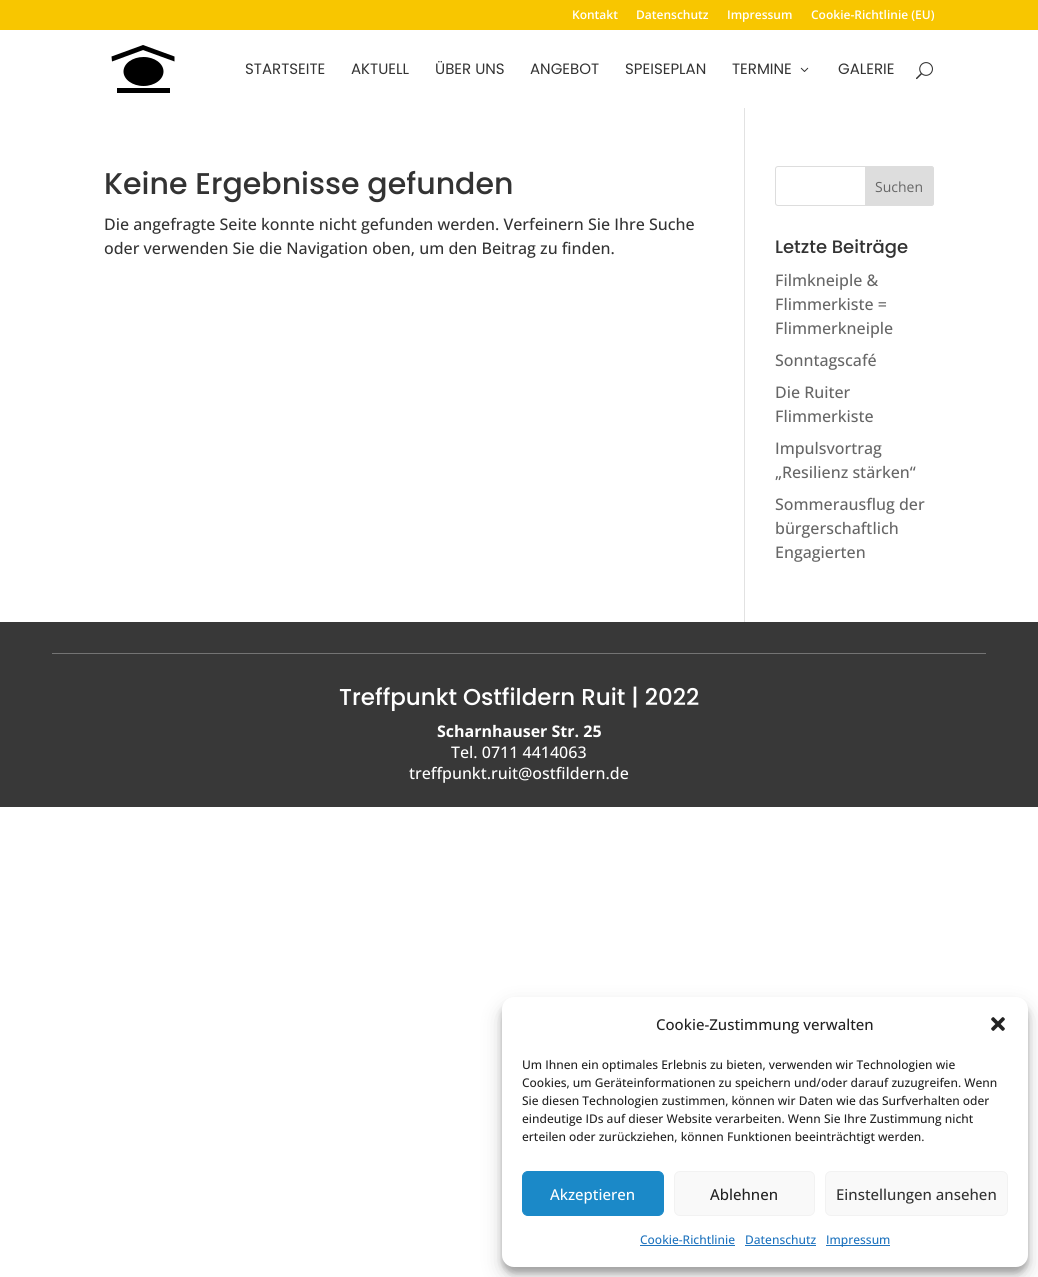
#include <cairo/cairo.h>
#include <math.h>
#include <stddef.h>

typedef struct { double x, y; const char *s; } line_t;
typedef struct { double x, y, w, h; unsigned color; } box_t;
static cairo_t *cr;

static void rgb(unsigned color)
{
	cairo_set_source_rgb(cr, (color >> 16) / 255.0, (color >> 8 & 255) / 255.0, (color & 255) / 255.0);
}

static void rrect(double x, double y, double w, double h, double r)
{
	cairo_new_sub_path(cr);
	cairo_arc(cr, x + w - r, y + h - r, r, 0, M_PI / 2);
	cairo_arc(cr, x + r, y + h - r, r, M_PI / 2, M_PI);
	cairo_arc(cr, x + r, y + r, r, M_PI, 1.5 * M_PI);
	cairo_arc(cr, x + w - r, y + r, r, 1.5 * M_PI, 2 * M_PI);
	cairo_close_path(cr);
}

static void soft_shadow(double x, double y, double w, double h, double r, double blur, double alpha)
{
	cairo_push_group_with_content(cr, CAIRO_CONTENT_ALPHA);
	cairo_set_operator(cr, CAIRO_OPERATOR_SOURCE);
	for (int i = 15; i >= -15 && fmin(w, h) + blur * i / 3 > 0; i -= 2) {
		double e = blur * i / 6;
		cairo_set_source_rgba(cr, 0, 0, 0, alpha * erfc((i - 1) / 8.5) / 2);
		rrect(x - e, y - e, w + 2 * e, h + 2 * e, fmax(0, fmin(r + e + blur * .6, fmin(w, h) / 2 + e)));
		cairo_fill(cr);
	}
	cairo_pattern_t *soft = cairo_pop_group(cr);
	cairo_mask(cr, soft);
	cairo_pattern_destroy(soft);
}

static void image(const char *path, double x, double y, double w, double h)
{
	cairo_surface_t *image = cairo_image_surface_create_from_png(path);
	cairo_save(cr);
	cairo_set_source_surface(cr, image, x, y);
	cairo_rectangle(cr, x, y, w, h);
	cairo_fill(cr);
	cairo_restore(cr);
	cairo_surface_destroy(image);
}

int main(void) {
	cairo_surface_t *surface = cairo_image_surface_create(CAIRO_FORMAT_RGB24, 1038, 1277);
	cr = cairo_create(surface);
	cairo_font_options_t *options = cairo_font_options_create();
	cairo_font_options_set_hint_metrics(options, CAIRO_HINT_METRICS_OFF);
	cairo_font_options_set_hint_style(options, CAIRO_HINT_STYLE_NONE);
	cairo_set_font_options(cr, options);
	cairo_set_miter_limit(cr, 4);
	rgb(0xffffff);
	cairo_paint(cr);
	rgb(0xf8c600);
	cairo_rectangle(cr, 0, 0, 1038, 30);
	cairo_fill(cr);
	rgb(0x000000);
	cairo_new_path(cr);
	cairo_move_to(cr, 143.5, 57);
	cairo_curve_to(cr, 154.5, 57, 163.5, 63.5, 163.5, 71.5);
	cairo_curve_to(cr, 163.5, 79.5, 154.5, 86, 143.5, 86);
	cairo_curve_to(cr, 132.5, 86, 123.5, 79.5, 123.5, 71.5);
	cairo_curve_to(cr, 123.5, 63.5, 132.5, 57, 143.5, 57);
	cairo_close_path(cr);
	cairo_fill(cr);
	cairo_new_path(cr);
	cairo_move_to(cr, 143, 45);
	cairo_line_to(cr, 111.5, 56.5);
	cairo_line_to(cr, 112, 61.5);
	cairo_line_to(cr, 144.5, 49.5);
	cairo_close_path(cr);
	cairo_fill(cr);
	cairo_new_path(cr);
	cairo_move_to(cr, 174.5, 56.5);
	cairo_line_to(cr, 143, 45);
	cairo_line_to(cr, 141.5, 49.5);
	cairo_line_to(cr, 174.5, 61.5);
	cairo_close_path(cr);
	cairo_fill(cr);
	cairo_rectangle(cr, 117, 88, 53, 5);
	cairo_fill(cr);
	image("img/1.png", 800, 67, 9, 5);
	image("img/2.png", 916, 62, 17, 18);
	rgb(0xe2e2e2);
	cairo_rectangle(cr, 744, 108, 1, 514);
	cairo_fill(cr);
	rrect(775.5, 166.5, 158, 39, 2.5);
	rgb(0xdddddd);
	cairo_set_line_width(cr, 1);
	cairo_stroke(cr);
	cairo_new_path(cr);
	cairo_move_to(cr, 865.5, 166.5);
	cairo_line_to(cr, 931, 166.5);
	cairo_curve_to(cr, 932.5, 166.5, 933.5, 167.5, 933.5, 169);
	cairo_line_to(cr, 933.5, 203);
	cairo_curve_to(cr, 933.5, 204.5, 932.5, 205.5, 931, 205.5);
	cairo_line_to(cr, 865.5, 205.5);
	cairo_close_path(cr);
	cairo_fill_preserve(cr);
	cairo_stroke(cr);
	rgb(0x383838);
	cairo_rectangle(cr, 0, 622, 1038, 185);
	cairo_fill(cr);
	rgb(0x747474);
	cairo_rectangle(cr, 52, 653, 934, 1);
	cairo_fill(cr);
	rgb(0x000000);
	soft_shadow(502, 1003, 526, 270, 12, 3, 0.23);
	soft_shadow(502, 1007, 526, 270, 12, 10, 0.19);
	rgb(0xffffff);
	rrect(502, 997, 526, 270, 12);
	cairo_fill(cr);
	image("img/3.png", 991, 1017, 14, 14);
	rgb(0x1b89c8);
	rrect(522.5, 1171.5, 141, 44, 5.5);
	cairo_fill_preserve(cr);
	cairo_stroke(cr);
	rgb(0xf9f9f9);
	rrect(674.5, 1171.5, 140, 44, 5.5);
	cairo_fill_preserve(cr);
	rgb(0xf2f2f2);
	cairo_stroke(cr);
	rgb(0xf9f9f9);
	rrect(825.5, 1171.5, 182, 44, 5.5);
	cairo_fill_preserve(cr);
	rgb(0xf2f2f2);
	cairo_stroke(cr);
	{
		static const box_t items[] = {
			{640, 1245, 95, 1, 0x1e73be},
			{745, 1245, 71, 1, 0x1e73be},
			{826, 1245, 64, 1, 0x1e73be},
		};
		for (size_t i = 0; i < sizeof items / sizeof *items; i++) {
			rgb(items[i].color);
			cairo_rectangle(cr, items[i].x, items[i].y, items[i].w, items[i].h);
			cairo_fill(cr);
		}
	}
	cairo_select_font_face(cr, "Open Sans SemiBold", CAIRO_FONT_SLANT_NORMAL, CAIRO_FONT_WEIGHT_NORMAL);
	cairo_set_font_size(cr, 12);
	rgb(0xffffff);
	{
		static const line_t items[] = {
			{572, 19, "Kontakt"},
			{636, 19, "Datenschutz"},
			{727, 19, "Impressum"},
			{811, 19, "Cookie-Richtlinie (EU)"},
		};
		for (size_t i = 0; i < sizeof items / sizeof *items; i++) {
			cairo_move_to(cr, items[i].x, items[i].y);
			cairo_show_text(cr, items[i].s);
		}
	}
	cairo_select_font_face(cr, "Poppins", CAIRO_FONT_SLANT_NORMAL, CAIRO_FONT_WEIGHT_NORMAL);
	cairo_set_font_size(cr, 15);
	rgb(0x333333);
	{
		static const line_t items[] = {
			{245, 74, "STARTSEITE"},
			{351, 74, "AKTUELL"},
			{435, 74, "ÜBER UNS"},
			{530, 74, "ANGEBOT"},
			{625, 74, "SPEISEPLAN"},
			{732, 74, "TERMINE"},
			{838, 74, "GALERIE"},
		};
		for (size_t i = 0; i < sizeof items / sizeof *items; i++) {
			cairo_move_to(cr, items[i].x, items[i].y);
			cairo_show_text(cr, items[i].s);
		}
	}
	cairo_select_font_face(cr, "Poppins Medium", CAIRO_FONT_SLANT_NORMAL, CAIRO_FONT_WEIGHT_NORMAL);
	cairo_set_font_size(cr, 30);
	cairo_move_to(cr, 104, 194);
	cairo_show_text(cr, "Keine Ergebnisse gefunden");
	cairo_select_font_face(cr, "Open Sans Medium", CAIRO_FONT_SLANT_NORMAL, CAIRO_FONT_WEIGHT_NORMAL);
	cairo_set_font_size(cr, 16);
	cairo_move_to(cr, 104, 230);
	cairo_show_text(cr, "Die angefragte Seite konnte nicht gefunden werden. Verfeinern Sie Ihre Suche");
	cairo_move_to(cr, 104, 254);
	cairo_show_text(cr, "oder verwenden Sie die Navigation oben, um den Beitrag zu finden.");
	cairo_select_font_face(cr, "Open Sans", CAIRO_FONT_SLANT_NORMAL, CAIRO_FONT_WEIGHT_NORMAL);
	cairo_set_font_size(cr, 14);
	rgb(0x666666);
	cairo_move_to(cr, 875, 192);
	cairo_show_text(cr, "Suchen");
	cairo_select_font_face(cr, "Poppins Medium", CAIRO_FONT_SLANT_NORMAL, CAIRO_FONT_WEIGHT_NORMAL);
	cairo_set_font_size(cr, 18);
	rgb(0x333333);
	cairo_move_to(cr, 775, 253);
	cairo_show_text(cr, "Letzte Beiträge");
	cairo_select_font_face(cr, "Open Sans Medium", CAIRO_FONT_SLANT_NORMAL, CAIRO_FONT_WEIGHT_NORMAL);
	cairo_set_font_size(cr, 16);
	rgb(0x666666);
	{
		static const line_t items[] = {
			{775, 286, "Filmkneiple &"},
			{775, 310, "Flimmerkiste ="},
			{775, 334, "Flimmerkneiple"},
			{775, 366, "Sonntagscafé"},
			{775, 398, "Die Ruiter"},
			{775, 422, "Flimmerkiste"},
			{775, 454, "Impulsvortrag"},
			{775, 478, "„Resilienz stärken“"},
			{775, 510, "Sommerausflug der"},
			{775, 534, "bürgerschaftlich"},
			{775, 558, "Engagierten"},
		};
		for (size_t i = 0; i < sizeof items / sizeof *items; i++) {
			cairo_move_to(cr, items[i].x, items[i].y);
			cairo_show_text(cr, items[i].s);
		}
	}
	cairo_select_font_face(cr, "Poppins Medium", CAIRO_FONT_SLANT_NORMAL, CAIRO_FONT_WEIGHT_NORMAL);
	cairo_set_font_size(cr, 23);
	rgb(0xffffff);
	cairo_move_to(cr, 339, 705);
	cairo_show_text(cr, "Treffpunkt Ostfildern Ruit | 2022");
	cairo_select_font_face(cr, "Open Sans", CAIRO_FONT_SLANT_NORMAL, CAIRO_FONT_WEIGHT_BOLD);
	cairo_set_font_size(cr, 16);
	cairo_move_to(cr, 437, 737);
	cairo_show_text(cr, "Scharnhauser Str. 25");
	cairo_select_font_face(cr, "Open Sans Medium", CAIRO_FONT_SLANT_NORMAL, CAIRO_FONT_WEIGHT_NORMAL);
	cairo_move_to(cr, 451, 758);
	cairo_show_text(cr, "Tel. 0711 4414063");
	cairo_move_to(cr, 409, 779);
	cairo_show_text(cr, "treffpunkt.ruit@ostfildern.de");
	cairo_set_font_size(cr, 15);
	rgb(0x222222);
	cairo_move_to(cr, 656, 1030);
	cairo_show_text(cr, "Cookie-Zustimmung verwalten");
	cairo_set_font_size(cr, 12);
	{
		static const line_t items[] = {
			{522, 1069, "Um Ihnen ein optimales Erlebnis zu bieten, verwenden wir Technologien wie"},
			{522, 1087, "Cookies, um Geräteinformationen zu speichern und/oder darauf zuzugreifen. Wenn"},
			{522, 1105, "Sie diesen Technologien zustimmen, können wir Daten wie das Surfverhalten oder"},
			{522, 1123, "eindeutige IDs auf dieser Website verarbeiten. Wenn Sie Ihre Zustimmung nicht"},
			{522, 1141, "erteilen oder zurückziehen, können Funktionen beeinträchtigt werden."},
		};
		for (size_t i = 0; i < sizeof items / sizeof *items; i++) {
			cairo_move_to(cr, items[i].x, items[i].y);
			cairo_show_text(cr, items[i].s);
		}
	}
	cairo_set_font_size(cr, 15);
	rgb(0xffffff);
	cairo_move_to(cr, 550, 1200);
	cairo_show_text(cr, "Akzeptieren");
	rgb(0x222222);
	cairo_move_to(cr, 710, 1200);
	cairo_show_text(cr, "Ablehnen");
	rgb(0x333333);
	cairo_move_to(cr, 836, 1200);
	cairo_show_text(cr, "Einstellungen ansehen");
	cairo_set_font_size(cr, 12);
	rgb(0x1e73be);
	{
		static const line_t items[] = {
			{640, 1244, "Cookie-Richtlinie"},
			{745, 1244, "Datenschutz"},
			{826, 1244, "Impressum"},
		};
		for (size_t i = 0; i < sizeof items / sizeof *items; i++) {
			cairo_move_to(cr, items[i].x, items[i].y);
			cairo_show_text(cr, items[i].s);
		}
	}
	cairo_surface_write_to_png(surface, "page.png");
	cairo_font_options_destroy(options);
	cairo_destroy(cr);
	cairo_surface_destroy(surface);
	return 0;
}
